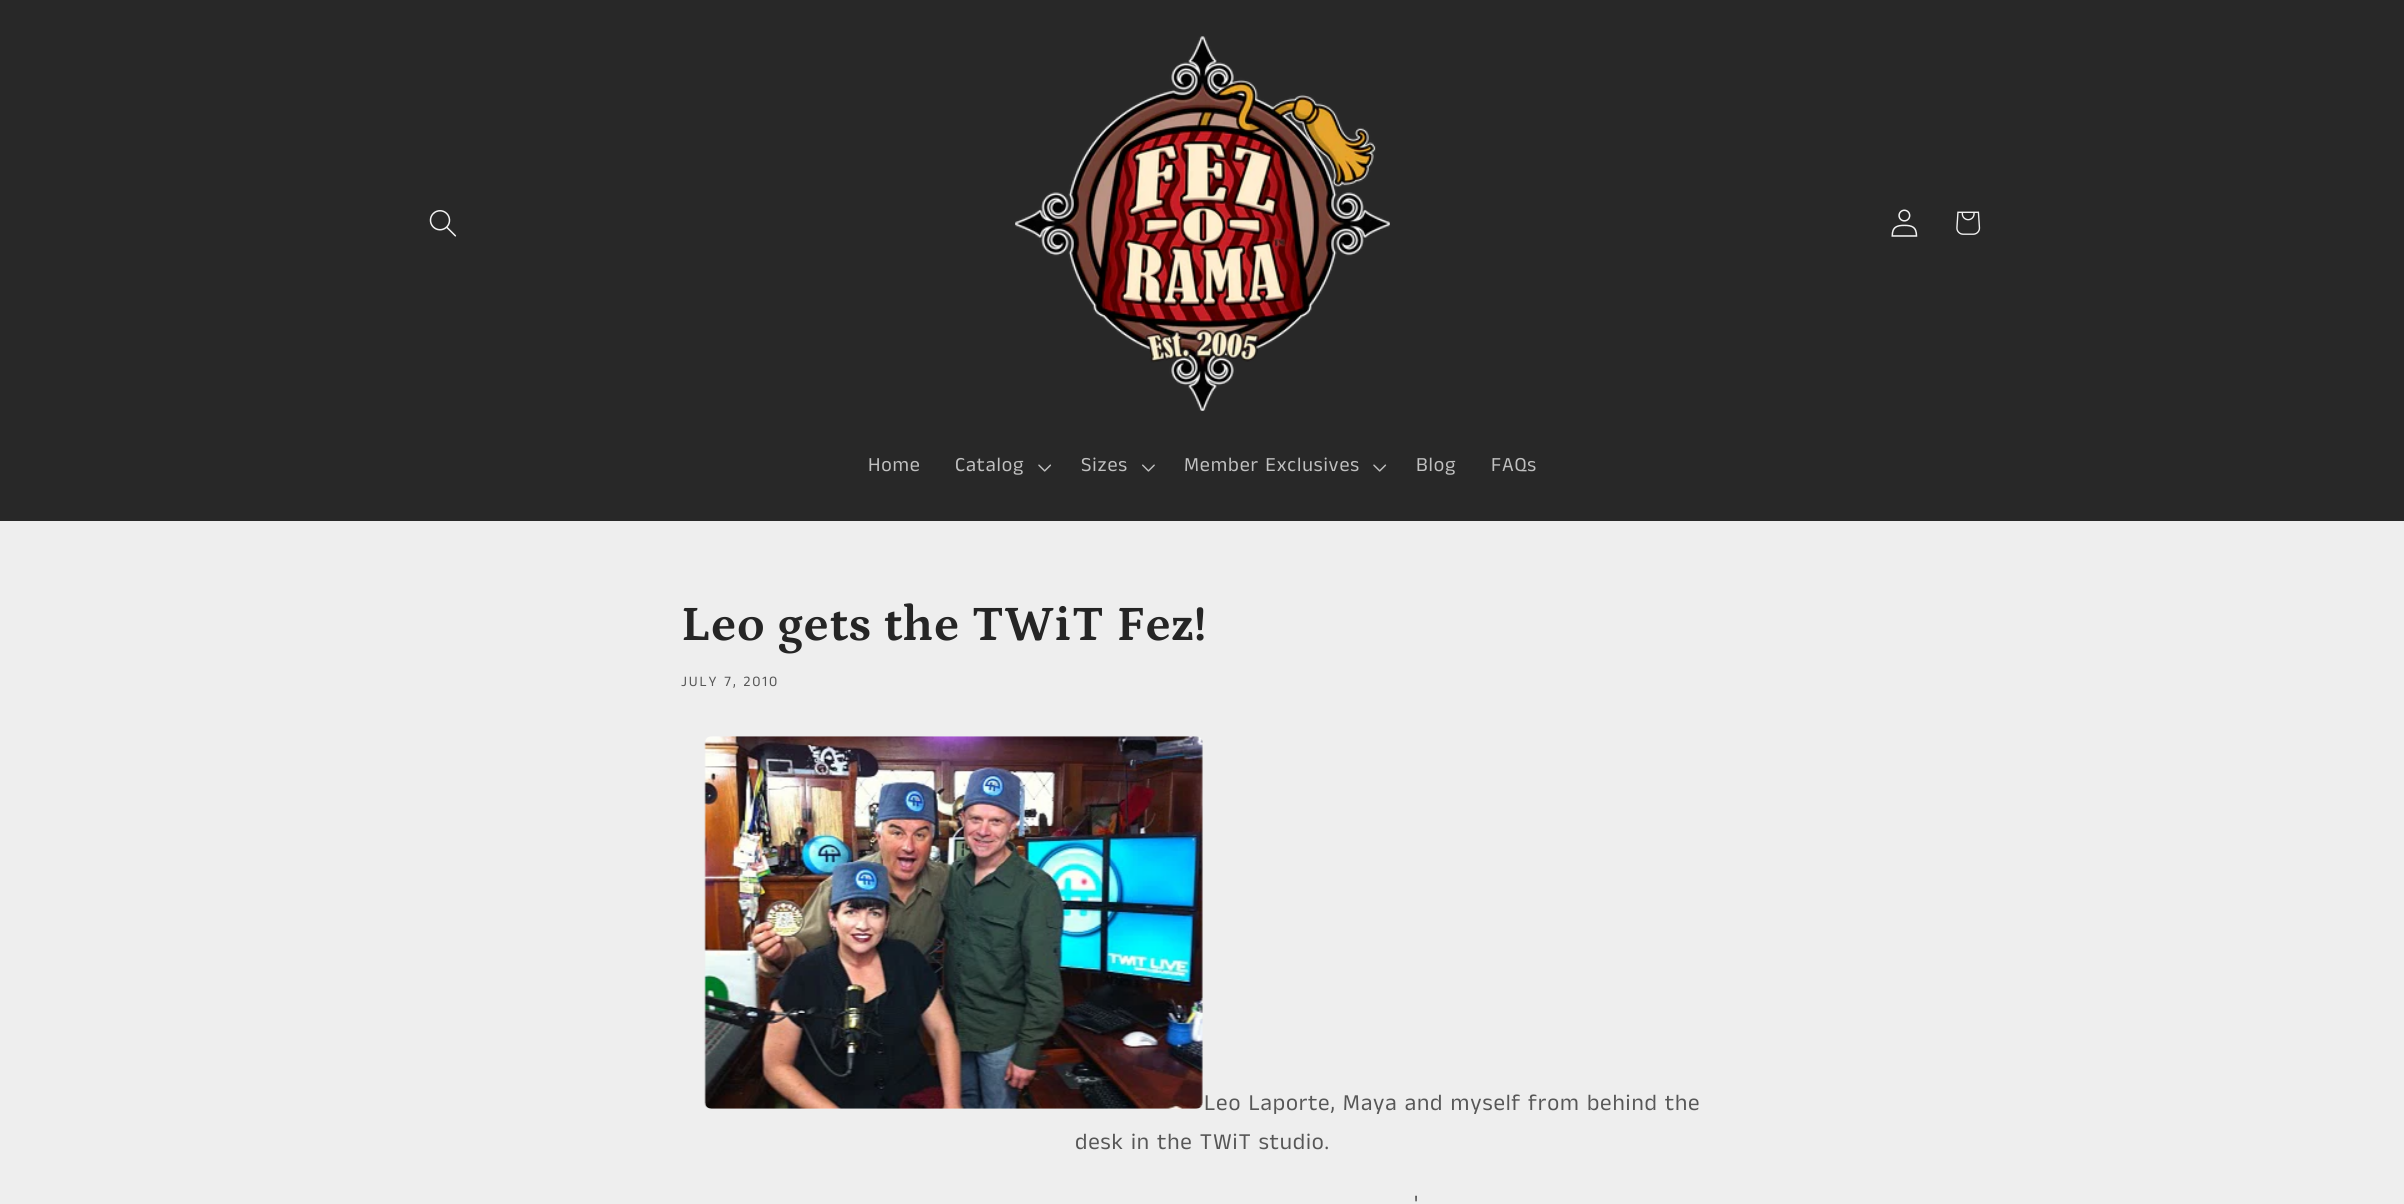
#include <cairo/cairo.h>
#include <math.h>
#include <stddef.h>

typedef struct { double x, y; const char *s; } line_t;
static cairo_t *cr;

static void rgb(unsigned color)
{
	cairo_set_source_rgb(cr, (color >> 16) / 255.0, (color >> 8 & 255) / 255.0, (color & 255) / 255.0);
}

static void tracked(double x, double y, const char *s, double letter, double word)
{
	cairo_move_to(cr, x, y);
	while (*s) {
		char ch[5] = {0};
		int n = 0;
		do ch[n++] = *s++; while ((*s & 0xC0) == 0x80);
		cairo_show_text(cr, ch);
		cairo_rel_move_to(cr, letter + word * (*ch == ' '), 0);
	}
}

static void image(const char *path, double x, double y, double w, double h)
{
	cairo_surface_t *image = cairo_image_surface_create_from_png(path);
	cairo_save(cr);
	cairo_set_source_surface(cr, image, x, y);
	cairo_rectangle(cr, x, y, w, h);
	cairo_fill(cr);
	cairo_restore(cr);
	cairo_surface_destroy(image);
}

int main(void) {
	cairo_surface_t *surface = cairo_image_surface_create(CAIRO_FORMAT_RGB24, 2404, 1204);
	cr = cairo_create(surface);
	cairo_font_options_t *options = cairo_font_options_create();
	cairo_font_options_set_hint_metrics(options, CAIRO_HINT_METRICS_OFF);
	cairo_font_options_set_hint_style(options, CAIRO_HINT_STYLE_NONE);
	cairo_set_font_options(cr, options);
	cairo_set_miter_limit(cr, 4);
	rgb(0xeeeeee);
	cairo_paint(cr);
	rgb(0x282828);
	cairo_rectangle(cr, 0, 0, 2404, 521);
	cairo_fill(cr);
	image("img/1.png", 429, 210, 28, 27);
	image("img/2.png", 1015, 36, 375, 375);
	image("img/3.png", 1891, 209, 27, 28);
	image("img/4.png", 1956, 211, 25, 24);
	image("img/5.png", 1038, 464, 13, 8);
	image("img/6.png", 1142, 464, 13, 8);
	image("img/7.png", 1373, 464, 14, 8);
	image("img/8.png", 704, 736, 499, 373);
	cairo_select_font_face(cr, "Anek Tamil", CAIRO_FONT_SLANT_NORMAL, CAIRO_FONT_WEIGHT_NORMAL);
	cairo_set_font_size(cr, 20.1);
	rgb(0xc0c0c0);
	{
		static const line_t items[] = {
			{868, 471, "Home"},
			{955, 471, "Catalog"},
			{1081, 471, "Sizes"},
			{1184, 471, "Member Exclusives"},
			{1416, 471, "Blog"},
			{1491, 471, "FAQs"},
		};
		for (size_t i = 0; i < sizeof items / sizeof *items; i++) {
			tracked(items[i].x, items[i].y, items[i].s, 0.85, 0);
		}
	}
	cairo_select_font_face(cr, "Petrona", CAIRO_FONT_SLANT_NORMAL, CAIRO_FONT_WEIGHT_BOLD);
	cairo_set_font_size(cr, 50);
	rgb(0x252525);
	tracked(681, 640, "Leo gets the TWiT Fez!", 0.75, 0);
	cairo_select_font_face(cr, "Anek Tamil", CAIRO_FONT_SLANT_NORMAL, CAIRO_FONT_WEIGHT_NORMAL);
	cairo_set_font_size(cr, 14.5);
	rgb(0x575757);
	tracked(681, 686, "JULY 7, 2010", 1.9, 0);
	cairo_set_font_size(cr, 23);
	{
		static const line_t items[] = {
			{1204, 1110, "Leo Laporte, Maya and myself from behind the"},
			{1075, 1149, "desk in the TWiT studio."},
			{1414, 1211, "'"},
		};
		for (size_t i = 0; i < sizeof items / sizeof *items; i++) {
			tracked(items[i].x, items[i].y, items[i].s, 0.85, 0);
		}
	}
	cairo_surface_write_to_png(surface, "page.png");
	cairo_font_options_destroy(options);
	cairo_destroy(cr);
	cairo_surface_destroy(surface);
	return 0;
}
